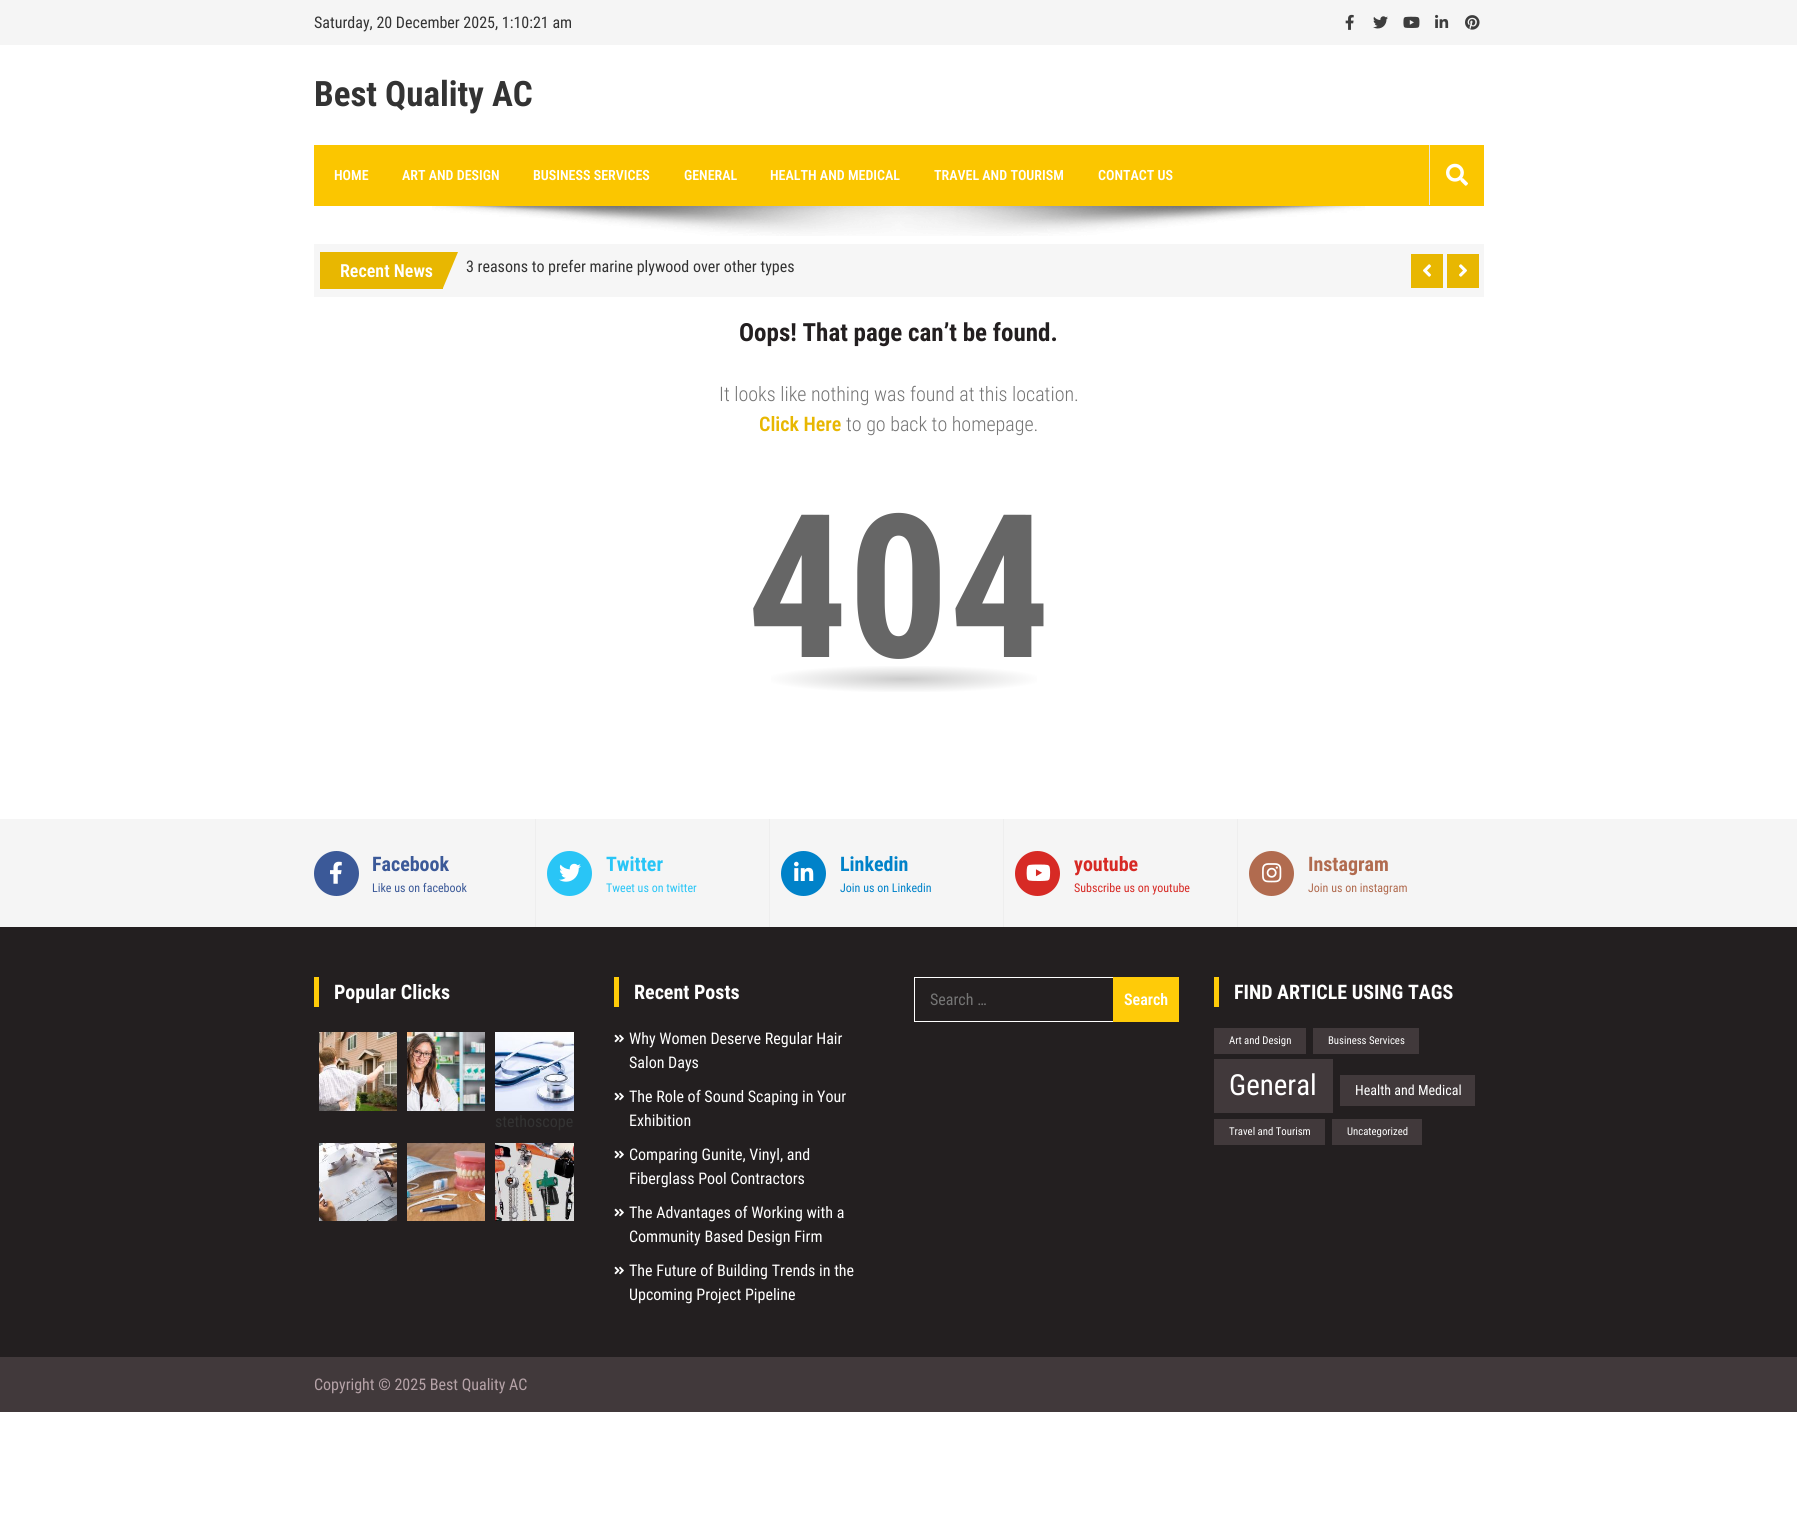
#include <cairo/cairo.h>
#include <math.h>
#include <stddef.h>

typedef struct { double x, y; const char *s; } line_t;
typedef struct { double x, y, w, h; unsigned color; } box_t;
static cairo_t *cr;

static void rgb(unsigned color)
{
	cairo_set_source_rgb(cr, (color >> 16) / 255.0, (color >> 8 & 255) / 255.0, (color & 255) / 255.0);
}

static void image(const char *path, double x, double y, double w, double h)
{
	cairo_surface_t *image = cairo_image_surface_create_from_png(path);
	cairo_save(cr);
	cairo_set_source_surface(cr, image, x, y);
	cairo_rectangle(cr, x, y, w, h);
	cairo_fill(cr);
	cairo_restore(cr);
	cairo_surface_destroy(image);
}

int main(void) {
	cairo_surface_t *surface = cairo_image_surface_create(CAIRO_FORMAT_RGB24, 1797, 1520);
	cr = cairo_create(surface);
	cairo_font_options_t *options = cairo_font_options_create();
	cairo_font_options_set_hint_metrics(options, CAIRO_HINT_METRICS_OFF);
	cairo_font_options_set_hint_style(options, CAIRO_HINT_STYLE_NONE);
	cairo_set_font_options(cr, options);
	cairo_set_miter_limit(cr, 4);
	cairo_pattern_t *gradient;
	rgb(0xffffff);
	cairo_paint(cr);
	rgb(0xf5f5f5);
	cairo_rectangle(cr, 0, 0, 1797, 45);
	cairo_fill(cr);
	image("img/1.png", 1345, 14, 9, 16);
	image("img/2.png", 1373, 16, 15, 13);
	image("img/3.png", 1403, 16, 17, 12);
	image("img/4.png", 1435, 14, 14, 14);
	image("img/5.png", 1465, 15, 15, 15);
	rgb(0xfbc600);
	cairo_rectangle(cr, 314, 145, 1170, 61);
	cairo_fill(cr);
	rgb(0xe5e5e5);
	cairo_rectangle(cr, 1429, 145, 1, 60);
	cairo_fill(cr);
	image("img/6.png", 1446, 163, 22, 23);
	image("img/7.png", 432, 206, 933, 30);
	rgb(0xf6f6f6);
	cairo_rectangle(cr, 314, 244, 1170, 53);
	cairo_fill(cr);
	rgb(0xe8b701);
	cairo_rectangle(cr, 320, 252, 123, 37);
	cairo_fill(cr);
	cairo_new_path(cr);
	cairo_move_to(cr, 443, 252);
	cairo_line_to(cr, 458, 252);
	cairo_line_to(cr, 443, 288);
	cairo_close_path(cr);
	cairo_fill(cr);
	cairo_rectangle(cr, 1411, 254, 32, 34);
	cairo_fill(cr);
	image("img/8.png", 1423, 264, 8, 13);
	cairo_rectangle(cr, 1447, 254, 32, 34);
	cairo_fill(cr);
	image("img/9.png", 1459, 264, 8, 13);
	gradient = cairo_pattern_create_radial(0, 0, 0, 0, 0, 1);
	cairo_pattern_set_matrix(gradient, &(cairo_matrix_t){1.0 / 279, 0, 0, 1.0 / 28, -1.0 * 904 / 279, -1.0 * 679 / 28});
	cairo_pattern_add_color_stop_rgba(gradient, 0, 0.8, 0.8, 0.8, 1);
	cairo_pattern_add_color_stop_rgba(gradient, 0.5, 1, 1, 1, 1);
	cairo_set_source(cr, gradient);
	cairo_pattern_destroy(gradient);
	cairo_rectangle(cr, 771, 666, 266, 26);
	cairo_fill(cr);
	rgb(0xf5f5f5);
	cairo_rectangle(cr, 0, 819, 1797, 108);
	cairo_fill(cr);
	rgb(0xeeeeee);
	cairo_rectangle(cr, 535, 819, 1, 108);
	cairo_fill(cr);
	rgb(0x3b5998);
	cairo_arc(cr, 336.5, 873.5, 22.5, 0, 2 * M_PI);
	cairo_fill(cr);
	image("img/10.png", 330, 861, 12, 23);
	rgb(0xeeeeee);
	cairo_rectangle(cr, 769, 819, 1, 108);
	cairo_fill(cr);
	rgb(0x29c5f6);
	cairo_arc(cr, 569.5, 873.5, 22.5, 0, 2 * M_PI);
	cairo_fill(cr);
	image("img/11.png", 559, 863, 22, 19);
	rgb(0xeeeeee);
	cairo_rectangle(cr, 1003, 819, 1, 108);
	cairo_fill(cr);
	rgb(0x0082c9);
	cairo_arc(cr, 803.5, 873.5, 22.5, 0, 2 * M_PI);
	cairo_fill(cr);
	image("img/12.png", 794, 861, 20, 20);
	rgb(0xeeeeee);
	cairo_rectangle(cr, 1237, 819, 1, 108);
	cairo_fill(cr);
	rgb(0xd72a25);
	cairo_arc(cr, 1037.5, 873.5, 22.5, 0, 2 * M_PI);
	cairo_fill(cr);
	image("img/13.png", 1026, 864, 25, 17);
	rgb(0xb16b4f);
	cairo_arc(cr, 1271.5, 873.5, 22.5, 0, 2 * M_PI);
	cairo_fill(cr);
	image("img/14.png", 1262, 863, 20, 20);
	rgb(0x231f20);
	cairo_rectangle(cr, 0, 927, 1797, 430);
	cairo_fill(cr);
	rgb(0xffcb08);
	cairo_rectangle(cr, 314, 977, 5, 30);
	cairo_fill(cr);
	image("img/15.png", 319, 1032, 78, 79);
	image("img/16.png", 407, 1032, 78, 79);
	image("img/17.png", 495, 1032, 79, 79);
	image("img/18.png", 319, 1143, 78, 78);
	image("img/19.png", 407, 1143, 78, 78);
	image("img/20.png", 495, 1143, 79, 78);
	cairo_rectangle(cr, 614, 977, 5, 30);
	cairo_fill(cr);
	image("img/21.png", 614, 1034, 10, 9);
	image("img/21.png", 614, 1092, 10, 9);
	image("img/21.png", 614, 1150, 10, 9);
	image("img/21.png", 614, 1208, 10, 9);
	image("img/21.png", 614, 1266, 10, 9);
	{
		static const box_t items[] = {
			{914, 977, 199, 1, 0xffffff},
			{914, 1021, 199, 1, 0xffffff},
			{914, 977, 1, 45, 0xffffff},
			{1113, 977, 66, 45, 0xffcb08},
			{1214, 977, 5, 30, 0xffcb08},
			{1214, 1028, 92, 26, 0x41393b},
			{1313, 1028, 106, 26, 0x41393b},
			{1214, 1059, 119, 54, 0x41393b},
			{1340, 1075, 135, 31, 0x41393b},
			{1214, 1119, 111, 26, 0x41393b},
			{1332, 1119, 90, 26, 0x41393b},
			{0, 1357, 1797, 55, 0x41393b},
		};
		for (size_t i = 0; i < sizeof items / sizeof *items; i++) {
			rgb(items[i].color);
			cairo_rectangle(cr, items[i].x, items[i].y, items[i].w, items[i].h);
			cairo_fill(cr);
		}
	}
	cairo_select_font_face(cr, "Roboto Condensed", CAIRO_FONT_SLANT_NORMAL, CAIRO_FONT_WEIGHT_NORMAL);
	cairo_set_font_size(cr, 16);
	rgb(0x333333);
	cairo_move_to(cr, 314, 28);
	cairo_show_text(cr, "Saturday, 20 December 2025, 1:10:21 am");
	cairo_select_font_face(cr, "Roboto Condensed", CAIRO_FONT_SLANT_NORMAL, CAIRO_FONT_WEIGHT_BOLD);
	cairo_set_font_size(cr, 35);
	cairo_move_to(cr, 314, 106);
	cairo_show_text(cr, "Best Quality AC");
	cairo_select_font_face(cr, "Roboto Condensed SemiBold", CAIRO_FONT_SLANT_NORMAL, CAIRO_FONT_WEIGHT_NORMAL);
	cairo_set_font_size(cr, 14);
	rgb(0xffffff);
	{
		static const line_t items[] = {
			{334, 180, "HOME"},
			{402, 180, "ART AND DESIGN"},
			{533, 180, "BUSINESS SERVICES"},
			{684, 180, "GENERAL"},
			{770, 180, "HEALTH AND MEDICAL"},
			{934, 180, "TRAVEL AND TOURISM"},
			{1098, 180, "CONTACT US"},
		};
		for (size_t i = 0; i < sizeof items / sizeof *items; i++) {
			cairo_move_to(cr, items[i].x, items[i].y);
			cairo_show_text(cr, items[i].s);
		}
	}
	cairo_set_font_size(cr, 18);
	cairo_move_to(cr, 340, 277);
	cairo_show_text(cr, "Recent News");
	cairo_select_font_face(cr, "Roboto Condensed", CAIRO_FONT_SLANT_NORMAL, CAIRO_FONT_WEIGHT_NORMAL);
	cairo_set_font_size(cr, 16);
	rgb(0x333333);
	cairo_move_to(cr, 466, 272);
	cairo_show_text(cr, "3 reasons to prefer marine plywood over other types");
	cairo_select_font_face(cr, "Roboto Condensed", CAIRO_FONT_SLANT_NORMAL, CAIRO_FONT_WEIGHT_BOLD);
	cairo_set_font_size(cr, 25);
	rgb(0x231f20);
	cairo_move_to(cr, 739, 341);
	cairo_show_text(cr, "Oops! That page can’t be found.");
	cairo_select_font_face(cr, "Roboto Condensed Light", CAIRO_FONT_SLANT_NORMAL, CAIRO_FONT_WEIGHT_NORMAL);
	cairo_set_font_size(cr, 20);
	rgb(0x757575);
	cairo_move_to(cr, 719, 401);
	cairo_show_text(cr, "It looks like nothing was found at this location.");
	cairo_select_font_face(cr, "Roboto Condensed SemiBold", CAIRO_FONT_SLANT_NORMAL, CAIRO_FONT_WEIGHT_NORMAL);
	rgb(0xe8b701);
	cairo_move_to(cr, 759, 431);
	cairo_show_text(cr, "Click Here");
	cairo_select_font_face(cr, "Roboto Condensed Light", CAIRO_FONT_SLANT_NORMAL, CAIRO_FONT_WEIGHT_NORMAL);
	rgb(0x757575);
	cairo_move_to(cr, 846, 431);
	cairo_show_text(cr, "to go back to homepage.");
	cairo_select_font_face(cr, "Roboto Condensed", CAIRO_FONT_SLANT_NORMAL, CAIRO_FONT_WEIGHT_BOLD);
	cairo_set_font_size(cr, 200);
	rgb(0x666666);
	cairo_move_to(cr, 747, 657);
	cairo_show_text(cr, "404");
	cairo_set_font_size(cr, 20);
	rgb(0x3b5998);
	cairo_move_to(cr, 372, 871);
	cairo_show_text(cr, "Facebook");
	cairo_select_font_face(cr, "Roboto Condensed", CAIRO_FONT_SLANT_NORMAL, CAIRO_FONT_WEIGHT_NORMAL);
	cairo_set_font_size(cr, 12);
	cairo_move_to(cr, 372, 892);
	cairo_show_text(cr, "Like us on facebook");
	cairo_select_font_face(cr, "Roboto Condensed", CAIRO_FONT_SLANT_NORMAL, CAIRO_FONT_WEIGHT_BOLD);
	cairo_set_font_size(cr, 20);
	rgb(0x29c5f6);
	cairo_move_to(cr, 606, 871);
	cairo_show_text(cr, "Twitter");
	cairo_select_font_face(cr, "Roboto Condensed", CAIRO_FONT_SLANT_NORMAL, CAIRO_FONT_WEIGHT_NORMAL);
	cairo_set_font_size(cr, 12);
	cairo_move_to(cr, 606, 892);
	cairo_show_text(cr, "Tweet us on twitter");
	cairo_select_font_face(cr, "Roboto Condensed", CAIRO_FONT_SLANT_NORMAL, CAIRO_FONT_WEIGHT_BOLD);
	cairo_set_font_size(cr, 20);
	rgb(0x0082c9);
	cairo_move_to(cr, 840, 871);
	cairo_show_text(cr, "Linkedin");
	cairo_select_font_face(cr, "Roboto Condensed", CAIRO_FONT_SLANT_NORMAL, CAIRO_FONT_WEIGHT_NORMAL);
	cairo_set_font_size(cr, 12);
	cairo_move_to(cr, 840, 892);
	cairo_show_text(cr, "Join us on Linkedin");
	cairo_select_font_face(cr, "Roboto Condensed", CAIRO_FONT_SLANT_NORMAL, CAIRO_FONT_WEIGHT_BOLD);
	cairo_set_font_size(cr, 20);
	rgb(0xd72a25);
	cairo_move_to(cr, 1074, 871);
	cairo_show_text(cr, "youtube");
	cairo_select_font_face(cr, "Roboto Condensed", CAIRO_FONT_SLANT_NORMAL, CAIRO_FONT_WEIGHT_NORMAL);
	cairo_set_font_size(cr, 12);
	cairo_move_to(cr, 1074, 892);
	cairo_show_text(cr, "Subscribe us on youtube");
	cairo_select_font_face(cr, "Roboto Condensed", CAIRO_FONT_SLANT_NORMAL, CAIRO_FONT_WEIGHT_BOLD);
	cairo_set_font_size(cr, 20);
	rgb(0xb16b4f);
	cairo_move_to(cr, 1308, 871);
	cairo_show_text(cr, "Instagram");
	cairo_select_font_face(cr, "Roboto Condensed", CAIRO_FONT_SLANT_NORMAL, CAIRO_FONT_WEIGHT_NORMAL);
	cairo_set_font_size(cr, 12);
	cairo_move_to(cr, 1308, 892);
	cairo_show_text(cr, "Join us on instagram");
	cairo_select_font_face(cr, "Roboto Condensed", CAIRO_FONT_SLANT_NORMAL, CAIRO_FONT_WEIGHT_BOLD);
	cairo_set_font_size(cr, 20);
	rgb(0xffffff);
	cairo_move_to(cr, 334, 999);
	cairo_show_text(cr, "Popular Clicks");
	cairo_select_font_face(cr, "Roboto Condensed", CAIRO_FONT_SLANT_NORMAL, CAIRO_FONT_WEIGHT_NORMAL);
	cairo_set_font_size(cr, 16);
	rgb(0x333333);
	cairo_move_to(cr, 495, 1127);
	cairo_show_text(cr, "stethoscope");
	cairo_select_font_face(cr, "Roboto Condensed", CAIRO_FONT_SLANT_NORMAL, CAIRO_FONT_WEIGHT_BOLD);
	cairo_set_font_size(cr, 20);
	rgb(0xffffff);
	cairo_move_to(cr, 634, 999);
	cairo_show_text(cr, "Recent Posts");
	cairo_select_font_face(cr, "Roboto Condensed", CAIRO_FONT_SLANT_NORMAL, CAIRO_FONT_WEIGHT_NORMAL);
	cairo_set_font_size(cr, 16);
	{
		static const line_t items[] = {
			{629, 1044, "Why Women Deserve Regular Hair"},
			{629, 1068, "Salon Days"},
			{629, 1102, "The Role of Sound Scaping in Your"},
			{629, 1126, "Exhibition"},
			{629, 1160, "Comparing Gunite, Vinyl, and"},
			{629, 1184, "Fiberglass Pool Contractors"},
			{629, 1218, "The Advantages of Working with a"},
			{629, 1242, "Community Based Design Firm"},
			{629, 1276, "The Future of Building Trends in the"},
			{629, 1300, "Upcoming Project Pipeline"},
		};
		for (size_t i = 0; i < sizeof items / sizeof *items; i++) {
			cairo_move_to(cr, items[i].x, items[i].y);
			cairo_show_text(cr, items[i].s);
		}
	}
	rgb(0x757575);
	cairo_move_to(cr, 930, 1005);
	cairo_show_text(cr, "Search …");
	cairo_select_font_face(cr, "Roboto Condensed SemiBold", CAIRO_FONT_SLANT_NORMAL, CAIRO_FONT_WEIGHT_NORMAL);
	rgb(0xffffff);
	cairo_move_to(cr, 1124, 1005);
	cairo_show_text(cr, "Search");
	cairo_select_font_face(cr, "Roboto Condensed", CAIRO_FONT_SLANT_NORMAL, CAIRO_FONT_WEIGHT_BOLD);
	cairo_set_font_size(cr, 20);
	cairo_move_to(cr, 1234, 999);
	cairo_show_text(cr, "FIND ARTICLE USING TAGS");
	cairo_select_font_face(cr, "Roboto Condensed", CAIRO_FONT_SLANT_NORMAL, CAIRO_FONT_WEIGHT_NORMAL);
	cairo_set_font_size(cr, 10.75);
	cairo_move_to(cr, 1229, 1044);
	cairo_show_text(cr, "Art and Design");
	cairo_move_to(cr, 1328, 1044);
	cairo_show_text(cr, "Business Services");
	cairo_set_font_size(cr, 29);
	cairo_move_to(cr, 1229, 1095);
	cairo_show_text(cr, "General");
	cairo_set_font_size(cr, 14);
	cairo_move_to(cr, 1355, 1095);
	cairo_show_text(cr, "Health and Medical");
	cairo_set_font_size(cr, 10.75);
	cairo_move_to(cr, 1229, 1135);
	cairo_show_text(cr, "Travel and Tourism");
	cairo_move_to(cr, 1347, 1135);
	cairo_show_text(cr, "Uncategorized");
	cairo_set_font_size(cr, 16);
	rgb(0xb5a2a7);
	cairo_move_to(cr, 314, 1390);
	cairo_show_text(cr, "Copyright © 2025 Best Quality AC");
	cairo_surface_write_to_png(surface, "page.png");
	cairo_font_options_destroy(options);
	cairo_destroy(cr);
	cairo_surface_destroy(surface);
	return 0;
}
